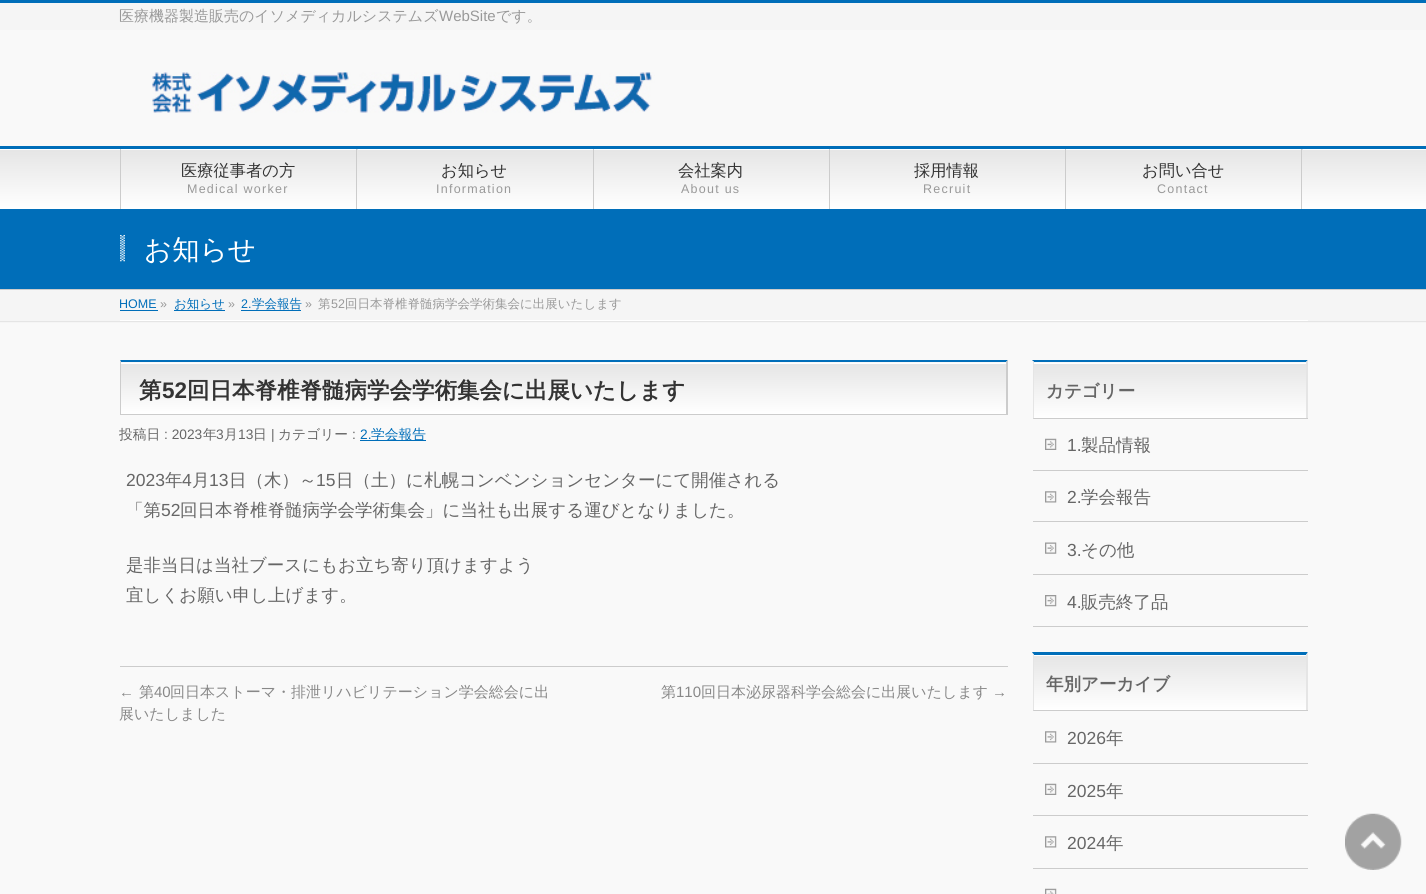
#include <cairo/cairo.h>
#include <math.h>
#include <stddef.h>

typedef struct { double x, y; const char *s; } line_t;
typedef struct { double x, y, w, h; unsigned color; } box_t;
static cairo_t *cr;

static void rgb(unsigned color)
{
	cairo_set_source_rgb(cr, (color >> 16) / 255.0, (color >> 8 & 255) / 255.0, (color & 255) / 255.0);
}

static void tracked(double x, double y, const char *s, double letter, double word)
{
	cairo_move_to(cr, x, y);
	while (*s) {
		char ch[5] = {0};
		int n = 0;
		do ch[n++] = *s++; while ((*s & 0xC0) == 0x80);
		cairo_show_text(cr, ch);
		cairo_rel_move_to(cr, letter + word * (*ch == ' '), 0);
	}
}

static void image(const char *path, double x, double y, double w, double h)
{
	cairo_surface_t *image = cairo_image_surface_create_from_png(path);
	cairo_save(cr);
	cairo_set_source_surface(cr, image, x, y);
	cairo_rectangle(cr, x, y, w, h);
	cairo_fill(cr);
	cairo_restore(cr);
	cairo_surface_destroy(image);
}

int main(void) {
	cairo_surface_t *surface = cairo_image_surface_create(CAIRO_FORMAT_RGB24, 1426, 894);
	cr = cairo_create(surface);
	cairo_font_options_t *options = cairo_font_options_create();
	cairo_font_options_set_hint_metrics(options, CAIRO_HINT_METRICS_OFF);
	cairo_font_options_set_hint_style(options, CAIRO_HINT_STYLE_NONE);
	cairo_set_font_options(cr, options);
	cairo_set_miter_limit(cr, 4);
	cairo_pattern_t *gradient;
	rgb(0xf9f9f9);
	cairo_paint(cr);
	rgb(0xf5f5f5);
	cairo_rectangle(cr, 0, 3, 1426, 27);
	cairo_fill(cr);
	rgb(0x006eb9);
	cairo_rectangle(cr, 0, 0, 1426, 3);
	cairo_fill(cr);
	image("img/1.png", 152, 72, 503, 41);
	gradient = cairo_pattern_create_linear(0, 149, 0, 209);
	cairo_pattern_add_color_stop_rgba(gradient, 0, 0.898, 0.898, 0.898, 1);
	cairo_pattern_add_color_stop_rgba(gradient, 1, 1, 1, 1, 1);
	cairo_set_source(cr, gradient);
	cairo_pattern_destroy(gradient);
	cairo_rectangle(cr, 0, 150, 1426, 59);
	cairo_fill(cr);
	{
		static const box_t items[] = {
			{0, 149, 1426, 1, 0xffffff},
			{0, 146, 1426, 3, 0x006eb9},
			{120, 149, 1, 60, 0xcccccc},
		};
		for (size_t i = 0; i < sizeof items / sizeof *items; i++) {
			rgb(items[i].color);
			cairo_rectangle(cr, items[i].x, items[i].y, items[i].w, items[i].h);
			cairo_fill(cr);
		}
	}
	gradient = cairo_pattern_create_linear(121, 149, 121, 209);
	cairo_pattern_add_color_stop_rgba(gradient, 0, 0.898, 0.898, 0.898, 1);
	cairo_pattern_add_color_stop_rgba(gradient, 1, 1, 1, 1, 1);
	cairo_set_source(cr, gradient);
	cairo_pattern_destroy(gradient);
	cairo_rectangle(cr, 121, 149, 237, 1);
	cairo_fill(cr);
	{
		static const box_t items[] = {
			{121, 149, 235, 1, 0xffffff},
			{356, 149, 1, 60, 0xcccccc},
			{593, 149, 1, 60, 0xcccccc},
			{829, 149, 1, 60, 0xcccccc},
			{1065, 149, 1, 60, 0xcccccc},
		};
		for (size_t i = 0; i < sizeof items / sizeof *items; i++) {
			rgb(items[i].color);
			cairo_rectangle(cr, items[i].x, items[i].y, items[i].w, items[i].h);
			cairo_fill(cr);
		}
	}
	gradient = cairo_pattern_create_linear(1066, 149, 1066, 209);
	cairo_pattern_add_color_stop_rgba(gradient, 0, 0.898, 0.898, 0.898, 1);
	cairo_pattern_add_color_stop_rgba(gradient, 1, 1, 1, 1, 1);
	cairo_set_source(cr, gradient);
	cairo_pattern_destroy(gradient);
	cairo_rectangle(cr, 1066, 149, 237, 1);
	cairo_fill(cr);
	{
		static const box_t items[] = {
			{1066, 149, 235, 1, 0xffffff},
			{1301, 149, 1, 60, 0xcccccc},
			{0, 209, 1426, 80, 0x006eb9},
			{0, 289, 1426, 1, 0xcccccc},
		};
		for (size_t i = 0; i < sizeof items / sizeof *items; i++) {
			rgb(items[i].color);
			cairo_rectangle(cr, items[i].x, items[i].y, items[i].w, items[i].h);
			cairo_fill(cr);
		}
	}
	image("img/2.png", 120, 235, 5, 27);
	{
		static const box_t items[] = {
			{0, 290, 1426, 33, 0xf5f5f5},
			{0, 321, 1426, 1, 0xe5e5e5},
			{120, 320, 1188, 1, 0xffffff},
			{120, 310, 38, 1, 0x006eb9},
			{174, 310, 51, 1, 0x006eb9},
			{241, 310, 60, 1, 0x006eb9},
		};
		for (size_t i = 0; i < sizeof items / sizeof *items; i++) {
			rgb(items[i].color);
			cairo_rectangle(cr, items[i].x, items[i].y, items[i].w, items[i].h);
			cairo_fill(cr);
		}
	}
	gradient = cairo_pattern_create_linear(121, 363, 121, 414);
	cairo_pattern_add_color_stop_rgba(gradient, 0, 0.898, 0.898, 0.898, 1);
	cairo_pattern_add_color_stop_rgba(gradient, 1, 1, 1, 1, 1);
	cairo_set_source(cr, gradient);
	cairo_pattern_destroy(gradient);
	cairo_rectangle(cr, 121, 364, 885, 50);
	cairo_fill(cr);
	rgb(0xffffff);
	cairo_rectangle(cr, 121, 363, 885, 1);
	cairo_fill(cr);
	rgb(0x006eb9);
	cairo_new_path(cr);
	cairo_move_to(cr, 120, 360);
	cairo_line_to(cr, 1008, 360);
	cairo_line_to(cr, 1006, 362);
	cairo_line_to(cr, 121, 362);
	cairo_close_path(cr);
	cairo_fill(cr);
	rgb(0xcccccc);
	cairo_new_path(cr);
	cairo_move_to(cr, 1008, 360);
	cairo_line_to(cr, 1008, 415);
	cairo_line_to(cr, 1006, 414);
	cairo_line_to(cr, 1006, 362);
	cairo_close_path(cr);
	cairo_fill(cr);
	cairo_rectangle(cr, 120, 414, 888, 1);
	cairo_fill(cr);
	cairo_new_path(cr);
	cairo_move_to(cr, 120, 415);
	cairo_line_to(cr, 120, 360);
	cairo_line_to(cr, 121, 362);
	cairo_line_to(cr, 121, 414);
	cairo_close_path(cr);
	cairo_fill(cr);
	rgb(0x006eb9);
	cairo_rectangle(cr, 360, 440, 66, 1);
	cairo_fill(cr);
	rgb(0xcccccc);
	cairo_rectangle(cr, 120, 666, 888, 1);
	cairo_fill(cr);
	gradient = cairo_pattern_create_linear(1034, 363, 1034, 418);
	cairo_pattern_add_color_stop_rgba(gradient, 0, 0.898, 0.898, 0.898, 1);
	cairo_pattern_add_color_stop_rgba(gradient, 1, 1, 1, 1, 1);
	cairo_set_source(cr, gradient);
	cairo_pattern_destroy(gradient);
	cairo_rectangle(cr, 1034, 364, 272, 54);
	cairo_fill(cr);
	rgb(0xffffff);
	cairo_rectangle(cr, 1034, 363, 272, 1);
	cairo_fill(cr);
	rgb(0x006eb9);
	cairo_new_path(cr);
	cairo_move_to(cr, 1032, 360);
	cairo_line_to(cr, 1308, 360);
	cairo_line_to(cr, 1306, 362);
	cairo_line_to(cr, 1034, 362);
	cairo_close_path(cr);
	cairo_fill(cr);
	rgb(0xe5e5e5);
	cairo_new_path(cr);
	cairo_move_to(cr, 1308, 360);
	cairo_line_to(cr, 1308, 419);
	cairo_line_to(cr, 1306, 418);
	cairo_line_to(cr, 1306, 362);
	cairo_close_path(cr);
	cairo_fill(cr);
	rgb(0xcccccc);
	cairo_rectangle(cr, 1033, 418, 275, 1);
	cairo_fill(cr);
	cairo_save(cr);
	cairo_rectangle(cr, 1033, 360, 275, 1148);
	cairo_clip(cr);
	rgb(0xe5e5e5);
	cairo_new_path(cr);
	cairo_move_to(cr, 1032, 419);
	cairo_line_to(cr, 1032, 360);
	cairo_line_to(cr, 1034, 362);
	cairo_line_to(cr, 1034, 418);
	cairo_close_path(cr);
	cairo_fill(cr);
	cairo_restore(cr);
	cairo_rectangle(cr, 1033, 470, 275, 1);
	cairo_fill(cr);
	image("img/3.png", 1045, 438, 12, 12);
	cairo_rectangle(cr, 1033, 521, 275, 1);
	cairo_fill(cr);
	image("img/4.png", 1045, 491, 12, 12);
	cairo_rectangle(cr, 1033, 574, 275, 1);
	cairo_fill(cr);
	image("img/5.png", 1045, 542, 12, 12);
	cairo_rectangle(cr, 1033, 626, 275, 1);
	cairo_fill(cr);
	image("img/6.png", 1045, 595, 12, 12);
	gradient = cairo_pattern_create_linear(1034, 655, 1034, 710);
	cairo_pattern_add_color_stop_rgba(gradient, 0, 0.898, 0.898, 0.898, 1);
	cairo_pattern_add_color_stop_rgba(gradient, 1, 1, 1, 1, 1);
	cairo_set_source(cr, gradient);
	cairo_pattern_destroy(gradient);
	cairo_rectangle(cr, 1034, 656, 272, 54);
	cairo_fill(cr);
	rgb(0xffffff);
	cairo_rectangle(cr, 1034, 655, 272, 1);
	cairo_fill(cr);
	rgb(0x006eb9);
	cairo_new_path(cr);
	cairo_move_to(cr, 1032, 652);
	cairo_line_to(cr, 1308, 652);
	cairo_line_to(cr, 1306, 655);
	cairo_line_to(cr, 1034, 655);
	cairo_close_path(cr);
	cairo_fill(cr);
	rgb(0xe5e5e5);
	cairo_new_path(cr);
	cairo_move_to(cr, 1308, 652);
	cairo_line_to(cr, 1308, 711);
	cairo_line_to(cr, 1306, 710);
	cairo_line_to(cr, 1306, 655);
	cairo_close_path(cr);
	cairo_fill(cr);
	rgb(0xcccccc);
	cairo_rectangle(cr, 1033, 710, 275, 1);
	cairo_fill(cr);
	cairo_save(cr);
	cairo_rectangle(cr, 1033, 360, 275, 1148);
	cairo_clip(cr);
	rgb(0xe5e5e5);
	cairo_new_path(cr);
	cairo_move_to(cr, 1032, 711);
	cairo_line_to(cr, 1032, 652);
	cairo_line_to(cr, 1034, 655);
	cairo_line_to(cr, 1034, 710);
	cairo_close_path(cr);
	cairo_fill(cr);
	cairo_restore(cr);
	cairo_rectangle(cr, 1033, 763, 275, 1);
	cairo_fill(cr);
	image("img/4.png", 1045, 731, 12, 12);
	cairo_rectangle(cr, 1033, 815, 275, 1);
	cairo_fill(cr);
	image("img/3.png", 1045, 783, 12, 12);
	cairo_rectangle(cr, 1033, 868, 275, 1);
	cairo_fill(cr);
	image("img/4.png", 1045, 836, 12, 12);
	image("img/7.png", 1045, 888, 12, 6);
	image("img/8.png", 1345, 813, 57, 57);
	cairo_select_font_face(cr, "WenQuanYi Zen Hei Medium", CAIRO_FONT_SLANT_NORMAL, CAIRO_FONT_WEIGHT_NORMAL);
	cairo_set_font_size(cr, 15);
	rgb(0x999999);
	cairo_move_to(cr, 119, 21);
	cairo_show_text(cr, "医療機器製造販売のイソメディカルシステムズ");
	cairo_select_font_face(cr, "Liberation Sans", CAIRO_FONT_SLANT_NORMAL, CAIRO_FONT_WEIGHT_NORMAL);
	cairo_move_to(cr, 439, 21);
	cairo_show_text(cr, "WebSite");
	cairo_select_font_face(cr, "WenQuanYi Zen Hei Medium", CAIRO_FONT_SLANT_NORMAL, CAIRO_FONT_WEIGHT_NORMAL);
	cairo_move_to(cr, 496, 21);
	cairo_show_text(cr, "です。");
	cairo_set_font_size(cr, 16.25);
	rgb(0x333333);
	cairo_move_to(cr, 181, 176);
	cairo_show_text(cr, "医療従事者の方");
	cairo_select_font_face(cr, "Liberation Sans", CAIRO_FONT_SLANT_NORMAL, CAIRO_FONT_WEIGHT_NORMAL);
	cairo_set_font_size(cr, 12.5);
	rgb(0x999999);
	tracked(187, 193, "Medical worker", 1.25, 0);
	cairo_select_font_face(cr, "WenQuanYi Zen Hei Medium", CAIRO_FONT_SLANT_NORMAL, CAIRO_FONT_WEIGHT_NORMAL);
	cairo_set_font_size(cr, 16.25);
	rgb(0x333333);
	cairo_move_to(cr, 441, 176);
	cairo_show_text(cr, "お知らせ");
	cairo_select_font_face(cr, "Liberation Sans", CAIRO_FONT_SLANT_NORMAL, CAIRO_FONT_WEIGHT_NORMAL);
	cairo_set_font_size(cr, 12.5);
	rgb(0x999999);
	tracked(436, 193, "Information", 1.25, 0);
	cairo_select_font_face(cr, "WenQuanYi Zen Hei Medium", CAIRO_FONT_SLANT_NORMAL, CAIRO_FONT_WEIGHT_NORMAL);
	cairo_set_font_size(cr, 16.25);
	rgb(0x333333);
	cairo_move_to(cr, 678, 176);
	cairo_show_text(cr, "会社案内");
	cairo_select_font_face(cr, "Liberation Sans", CAIRO_FONT_SLANT_NORMAL, CAIRO_FONT_WEIGHT_NORMAL);
	cairo_set_font_size(cr, 12.5);
	rgb(0x999999);
	tracked(681, 193, "About us", 1.25, 0);
	cairo_select_font_face(cr, "WenQuanYi Zen Hei Medium", CAIRO_FONT_SLANT_NORMAL, CAIRO_FONT_WEIGHT_NORMAL);
	cairo_set_font_size(cr, 16.25);
	rgb(0x333333);
	cairo_move_to(cr, 914, 176);
	cairo_show_text(cr, "採用情報");
	cairo_select_font_face(cr, "Liberation Sans", CAIRO_FONT_SLANT_NORMAL, CAIRO_FONT_WEIGHT_NORMAL);
	cairo_set_font_size(cr, 12.5);
	rgb(0x999999);
	tracked(923, 193, "Recruit", 1.25, 0);
	cairo_select_font_face(cr, "WenQuanYi Zen Hei Medium", CAIRO_FONT_SLANT_NORMAL, CAIRO_FONT_WEIGHT_NORMAL);
	cairo_set_font_size(cr, 16.25);
	rgb(0x333333);
	cairo_move_to(cr, 1142, 176);
	cairo_show_text(cr, "お問い合せ");
	cairo_select_font_face(cr, "Liberation Sans", CAIRO_FONT_SLANT_NORMAL, CAIRO_FONT_WEIGHT_NORMAL);
	cairo_set_font_size(cr, 12.5);
	rgb(0x999999);
	tracked(1157, 193, "Contact", 1.25, 0);
	cairo_select_font_face(cr, "WenQuanYi Zen Hei Medium", CAIRO_FONT_SLANT_NORMAL, CAIRO_FONT_WEIGHT_NORMAL);
	cairo_set_font_size(cr, 27.5);
	rgb(0xffffff);
	cairo_move_to(cr, 144, 259);
	cairo_show_text(cr, "お知らせ");
	cairo_select_font_face(cr, "Liberation Sans", CAIRO_FONT_SLANT_NORMAL, CAIRO_FONT_WEIGHT_NORMAL);
	cairo_set_font_size(cr, 12.5);
	rgb(0x006eb9);
	cairo_move_to(cr, 119, 308);
	cairo_show_text(cr, "HOME");
	rgb(0x999999);
	cairo_move_to(cr, 160, 308);
	cairo_show_text(cr, "»");
	cairo_select_font_face(cr, "WenQuanYi Zen Hei Medium", CAIRO_FONT_SLANT_NORMAL, CAIRO_FONT_WEIGHT_NORMAL);
	rgb(0x006eb9);
	cairo_move_to(cr, 174, 308);
	cairo_show_text(cr, "お知らせ");
	cairo_select_font_face(cr, "Liberation Sans", CAIRO_FONT_SLANT_NORMAL, CAIRO_FONT_WEIGHT_NORMAL);
	rgb(0x999999);
	cairo_move_to(cr, 228, 308);
	cairo_show_text(cr, "»");
	rgb(0x006eb9);
	cairo_move_to(cr, 241, 308);
	cairo_show_text(cr, "2.");
	cairo_select_font_face(cr, "WenQuanYi Zen Hei Medium", CAIRO_FONT_SLANT_NORMAL, CAIRO_FONT_WEIGHT_NORMAL);
	cairo_move_to(cr, 252, 308);
	cairo_show_text(cr, "学会報告");
	cairo_select_font_face(cr, "Liberation Sans", CAIRO_FONT_SLANT_NORMAL, CAIRO_FONT_WEIGHT_NORMAL);
	rgb(0x999999);
	cairo_move_to(cr, 305, 308);
	cairo_show_text(cr, "»");
	cairo_select_font_face(cr, "WenQuanYi Zen Hei Medium", CAIRO_FONT_SLANT_NORMAL, CAIRO_FONT_WEIGHT_NORMAL);
	cairo_move_to(cr, 318, 308);
	cairo_show_text(cr, "第");
	cairo_select_font_face(cr, "Liberation Sans", CAIRO_FONT_SLANT_NORMAL, CAIRO_FONT_WEIGHT_NORMAL);
	cairo_move_to(cr, 331, 308);
	cairo_show_text(cr, "52");
	cairo_select_font_face(cr, "WenQuanYi Zen Hei Medium", CAIRO_FONT_SLANT_NORMAL, CAIRO_FONT_WEIGHT_NORMAL);
	cairo_move_to(cr, 345, 308);
	cairo_show_text(cr, "回日本脊椎脊髄病学会学術集会に出展いたします");
	cairo_select_font_face(cr, "WenQuanYi Zen Hei", CAIRO_FONT_SLANT_NORMAL, CAIRO_FONT_WEIGHT_BOLD);
	cairo_set_font_size(cr, 22.5);
	rgb(0x333333);
	cairo_move_to(cr, 139, 398);
	cairo_show_text(cr, "第");
	cairo_select_font_face(cr, "Liberation Sans", CAIRO_FONT_SLANT_NORMAL, CAIRO_FONT_WEIGHT_BOLD);
	cairo_move_to(cr, 162, 398);
	cairo_show_text(cr, "52");
	cairo_select_font_face(cr, "WenQuanYi Zen Hei", CAIRO_FONT_SLANT_NORMAL, CAIRO_FONT_WEIGHT_BOLD);
	cairo_move_to(cr, 187, 398);
	cairo_show_text(cr, "回日本脊椎脊髄病学会学術集会に出展いたします");
	cairo_select_font_face(cr, "WenQuanYi Zen Hei Medium", CAIRO_FONT_SLANT_NORMAL, CAIRO_FONT_WEIGHT_NORMAL);
	cairo_set_font_size(cr, 13.75);
	rgb(0x666666);
	cairo_move_to(cr, 119, 439);
	cairo_show_text(cr, "投稿日");
	cairo_select_font_face(cr, "Liberation Sans", CAIRO_FONT_SLANT_NORMAL, CAIRO_FONT_WEIGHT_NORMAL);
	cairo_move_to(cr, 164, 439);
	cairo_show_text(cr, ": 2023");
	cairo_select_font_face(cr, "WenQuanYi Zen Hei Medium", CAIRO_FONT_SLANT_NORMAL, CAIRO_FONT_WEIGHT_NORMAL);
	cairo_move_to(cr, 203, 439);
	cairo_show_text(cr, "年");
	cairo_select_font_face(cr, "Liberation Sans", CAIRO_FONT_SLANT_NORMAL, CAIRO_FONT_WEIGHT_NORMAL);
	cairo_move_to(cr, 216, 439);
	cairo_show_text(cr, "3");
	cairo_select_font_face(cr, "WenQuanYi Zen Hei Medium", CAIRO_FONT_SLANT_NORMAL, CAIRO_FONT_WEIGHT_NORMAL);
	cairo_move_to(cr, 224, 439);
	cairo_show_text(cr, "月");
	cairo_select_font_face(cr, "Liberation Sans", CAIRO_FONT_SLANT_NORMAL, CAIRO_FONT_WEIGHT_NORMAL);
	cairo_move_to(cr, 238, 439);
	cairo_show_text(cr, "13");
	cairo_select_font_face(cr, "WenQuanYi Zen Hei Medium", CAIRO_FONT_SLANT_NORMAL, CAIRO_FONT_WEIGHT_NORMAL);
	cairo_move_to(cr, 253, 439);
	cairo_show_text(cr, "日");
	cairo_select_font_face(cr, "Liberation Sans", CAIRO_FONT_SLANT_NORMAL, CAIRO_FONT_WEIGHT_NORMAL);
	cairo_move_to(cr, 271, 439);
	cairo_show_text(cr, "|");
	cairo_select_font_face(cr, "WenQuanYi Zen Hei Medium", CAIRO_FONT_SLANT_NORMAL, CAIRO_FONT_WEIGHT_NORMAL);
	cairo_move_to(cr, 278, 439);
	cairo_show_text(cr, "カテゴリー");
	cairo_select_font_face(cr, "Liberation Sans", CAIRO_FONT_SLANT_NORMAL, CAIRO_FONT_WEIGHT_NORMAL);
	cairo_move_to(cr, 352, 439);
	cairo_show_text(cr, ":");
	rgb(0x006eb9);
	cairo_move_to(cr, 360, 439);
	cairo_show_text(cr, "2.");
	cairo_select_font_face(cr, "WenQuanYi Zen Hei Medium", CAIRO_FONT_SLANT_NORMAL, CAIRO_FONT_WEIGHT_NORMAL);
	cairo_move_to(cr, 371, 439);
	cairo_show_text(cr, "学会報告");
	cairo_select_font_face(cr, "Liberation Sans", CAIRO_FONT_SLANT_NORMAL, CAIRO_FONT_WEIGHT_NORMAL);
	cairo_set_font_size(cr, 17.5);
	rgb(0x666666);
	cairo_move_to(cr, 126, 486);
	cairo_show_text(cr, "2023");
	cairo_select_font_face(cr, "WenQuanYi Zen Hei Medium", CAIRO_FONT_SLANT_NORMAL, CAIRO_FONT_WEIGHT_NORMAL);
	cairo_move_to(cr, 165, 486);
	cairo_show_text(cr, "年");
	cairo_select_font_face(cr, "Liberation Sans", CAIRO_FONT_SLANT_NORMAL, CAIRO_FONT_WEIGHT_NORMAL);
	cairo_move_to(cr, 182, 486);
	cairo_show_text(cr, "4");
	cairo_select_font_face(cr, "WenQuanYi Zen Hei Medium", CAIRO_FONT_SLANT_NORMAL, CAIRO_FONT_WEIGHT_NORMAL);
	cairo_move_to(cr, 192, 486);
	cairo_show_text(cr, "月");
	cairo_select_font_face(cr, "Liberation Sans", CAIRO_FONT_SLANT_NORMAL, CAIRO_FONT_WEIGHT_NORMAL);
	cairo_move_to(cr, 209, 486);
	cairo_show_text(cr, "13");
	cairo_select_font_face(cr, "WenQuanYi Zen Hei Medium", CAIRO_FONT_SLANT_NORMAL, CAIRO_FONT_WEIGHT_NORMAL);
	cairo_move_to(cr, 229, 486);
	cairo_show_text(cr, "日（木）～");
	cairo_select_font_face(cr, "Liberation Sans", CAIRO_FONT_SLANT_NORMAL, CAIRO_FONT_WEIGHT_NORMAL);
	cairo_move_to(cr, 316, 486);
	cairo_show_text(cr, "15");
	cairo_select_font_face(cr, "WenQuanYi Zen Hei Medium", CAIRO_FONT_SLANT_NORMAL, CAIRO_FONT_WEIGHT_NORMAL);
	cairo_move_to(cr, 336, 486);
	cairo_show_text(cr, "日（土）に札幌コンベンションセンターにて開催される");
	cairo_move_to(cr, 126, 516);
	cairo_show_text(cr, "「第");
	cairo_select_font_face(cr, "Liberation Sans", CAIRO_FONT_SLANT_NORMAL, CAIRO_FONT_WEIGHT_NORMAL);
	cairo_move_to(cr, 161, 516);
	cairo_show_text(cr, "52");
	cairo_select_font_face(cr, "WenQuanYi Zen Hei Medium", CAIRO_FONT_SLANT_NORMAL, CAIRO_FONT_WEIGHT_NORMAL);
	{
		static const line_t items[] = {
			{180, 516, "回日本脊椎脊髄病学会学術集会」に当社も出展する運びとなりました。"},
			{126, 571, "是非当日は当社ブースにもお立ち寄り頂けますよう"},
			{126, 601, "宜しくお願い申し上げます。"},
		};
		for (size_t i = 0; i < sizeof items / sizeof *items; i++) {
			cairo_move_to(cr, items[i].x, items[i].y);
			cairo_show_text(cr, items[i].s);
		}
	}
	cairo_select_font_face(cr, "Liberation Sans", CAIRO_FONT_SLANT_NORMAL, CAIRO_FONT_WEIGHT_NORMAL);
	cairo_set_font_size(cr, 15);
	rgb(0x888888);
	cairo_move_to(cr, 119, 697);
	cairo_show_text(cr, "←");
	cairo_select_font_face(cr, "WenQuanYi Zen Hei Medium", CAIRO_FONT_SLANT_NORMAL, CAIRO_FONT_WEIGHT_NORMAL);
	cairo_move_to(cr, 139, 697);
	cairo_show_text(cr, "第");
	cairo_select_font_face(cr, "Liberation Sans", CAIRO_FONT_SLANT_NORMAL, CAIRO_FONT_WEIGHT_NORMAL);
	cairo_move_to(cr, 154, 697);
	cairo_show_text(cr, "40");
	cairo_select_font_face(cr, "WenQuanYi Zen Hei Medium", CAIRO_FONT_SLANT_NORMAL, CAIRO_FONT_WEIGHT_NORMAL);
	{
		static const line_t items[] = {
			{170, 697, "回日本ストーマ・排泄リハビリテーション学会総会に出"},
			{119, 719, "展いたしました"},
			{661, 697, "第"},
		};
		for (size_t i = 0; i < sizeof items / sizeof *items; i++) {
			cairo_move_to(cr, items[i].x, items[i].y);
			cairo_show_text(cr, items[i].s);
		}
	}
	cairo_select_font_face(cr, "Liberation Sans", CAIRO_FONT_SLANT_NORMAL, CAIRO_FONT_WEIGHT_NORMAL);
	cairo_move_to(cr, 676, 697);
	cairo_show_text(cr, "110");
	cairo_select_font_face(cr, "WenQuanYi Zen Hei Medium", CAIRO_FONT_SLANT_NORMAL, CAIRO_FONT_WEIGHT_NORMAL);
	cairo_move_to(cr, 701, 697);
	cairo_show_text(cr, "回日本泌尿器科学会総会に出展いたします");
	cairo_select_font_face(cr, "Liberation Sans", CAIRO_FONT_SLANT_NORMAL, CAIRO_FONT_WEIGHT_NORMAL);
	cairo_move_to(cr, 992, 697);
	cairo_show_text(cr, "→");
	cairo_select_font_face(cr, "WenQuanYi Zen Hei", CAIRO_FONT_SLANT_NORMAL, CAIRO_FONT_WEIGHT_BOLD);
	cairo_set_font_size(cr, 17.5);
	rgb(0x666666);
	cairo_move_to(cr, 1046, 397);
	cairo_show_text(cr, "カテゴリー");
	cairo_select_font_face(cr, "Liberation Sans", CAIRO_FONT_SLANT_NORMAL, CAIRO_FONT_WEIGHT_NORMAL);
	cairo_move_to(cr, 1067, 451);
	cairo_show_text(cr, "1.");
	cairo_select_font_face(cr, "WenQuanYi Zen Hei Medium", CAIRO_FONT_SLANT_NORMAL, CAIRO_FONT_WEIGHT_NORMAL);
	cairo_move_to(cr, 1081, 451);
	cairo_show_text(cr, "製品情報");
	cairo_select_font_face(cr, "Liberation Sans", CAIRO_FONT_SLANT_NORMAL, CAIRO_FONT_WEIGHT_NORMAL);
	cairo_move_to(cr, 1067, 503);
	cairo_show_text(cr, "2.");
	cairo_select_font_face(cr, "WenQuanYi Zen Hei Medium", CAIRO_FONT_SLANT_NORMAL, CAIRO_FONT_WEIGHT_NORMAL);
	cairo_move_to(cr, 1081, 503);
	cairo_show_text(cr, "学会報告");
	cairo_select_font_face(cr, "Liberation Sans", CAIRO_FONT_SLANT_NORMAL, CAIRO_FONT_WEIGHT_NORMAL);
	cairo_move_to(cr, 1067, 556);
	cairo_show_text(cr, "3.");
	cairo_select_font_face(cr, "WenQuanYi Zen Hei Medium", CAIRO_FONT_SLANT_NORMAL, CAIRO_FONT_WEIGHT_NORMAL);
	cairo_move_to(cr, 1081, 556);
	cairo_show_text(cr, "その他");
	cairo_select_font_face(cr, "Liberation Sans", CAIRO_FONT_SLANT_NORMAL, CAIRO_FONT_WEIGHT_NORMAL);
	cairo_move_to(cr, 1067, 608);
	cairo_show_text(cr, "4.");
	cairo_select_font_face(cr, "WenQuanYi Zen Hei Medium", CAIRO_FONT_SLANT_NORMAL, CAIRO_FONT_WEIGHT_NORMAL);
	cairo_move_to(cr, 1081, 608);
	cairo_show_text(cr, "販売終了品");
	cairo_select_font_face(cr, "WenQuanYi Zen Hei", CAIRO_FONT_SLANT_NORMAL, CAIRO_FONT_WEIGHT_BOLD);
	cairo_move_to(cr, 1046, 690);
	cairo_show_text(cr, "年別アーカイブ");
	cairo_select_font_face(cr, "Liberation Sans", CAIRO_FONT_SLANT_NORMAL, CAIRO_FONT_WEIGHT_NORMAL);
	cairo_move_to(cr, 1067, 744);
	cairo_show_text(cr, "2026");
	cairo_select_font_face(cr, "WenQuanYi Zen Hei Medium", CAIRO_FONT_SLANT_NORMAL, CAIRO_FONT_WEIGHT_NORMAL);
	cairo_move_to(cr, 1106, 744);
	cairo_show_text(cr, "年");
	cairo_select_font_face(cr, "Liberation Sans", CAIRO_FONT_SLANT_NORMAL, CAIRO_FONT_WEIGHT_NORMAL);
	cairo_move_to(cr, 1067, 797);
	cairo_show_text(cr, "2025");
	cairo_select_font_face(cr, "WenQuanYi Zen Hei Medium", CAIRO_FONT_SLANT_NORMAL, CAIRO_FONT_WEIGHT_NORMAL);
	cairo_move_to(cr, 1106, 797);
	cairo_show_text(cr, "年");
	cairo_select_font_face(cr, "Liberation Sans", CAIRO_FONT_SLANT_NORMAL, CAIRO_FONT_WEIGHT_NORMAL);
	cairo_move_to(cr, 1067, 849);
	cairo_show_text(cr, "2024");
	cairo_select_font_face(cr, "WenQuanYi Zen Hei Medium", CAIRO_FONT_SLANT_NORMAL, CAIRO_FONT_WEIGHT_NORMAL);
	cairo_move_to(cr, 1106, 849);
	cairo_show_text(cr, "年");
	cairo_surface_write_to_png(surface, "page.png");
	cairo_font_options_destroy(options);
	cairo_destroy(cr);
	cairo_surface_destroy(surface);
	return 0;
}
